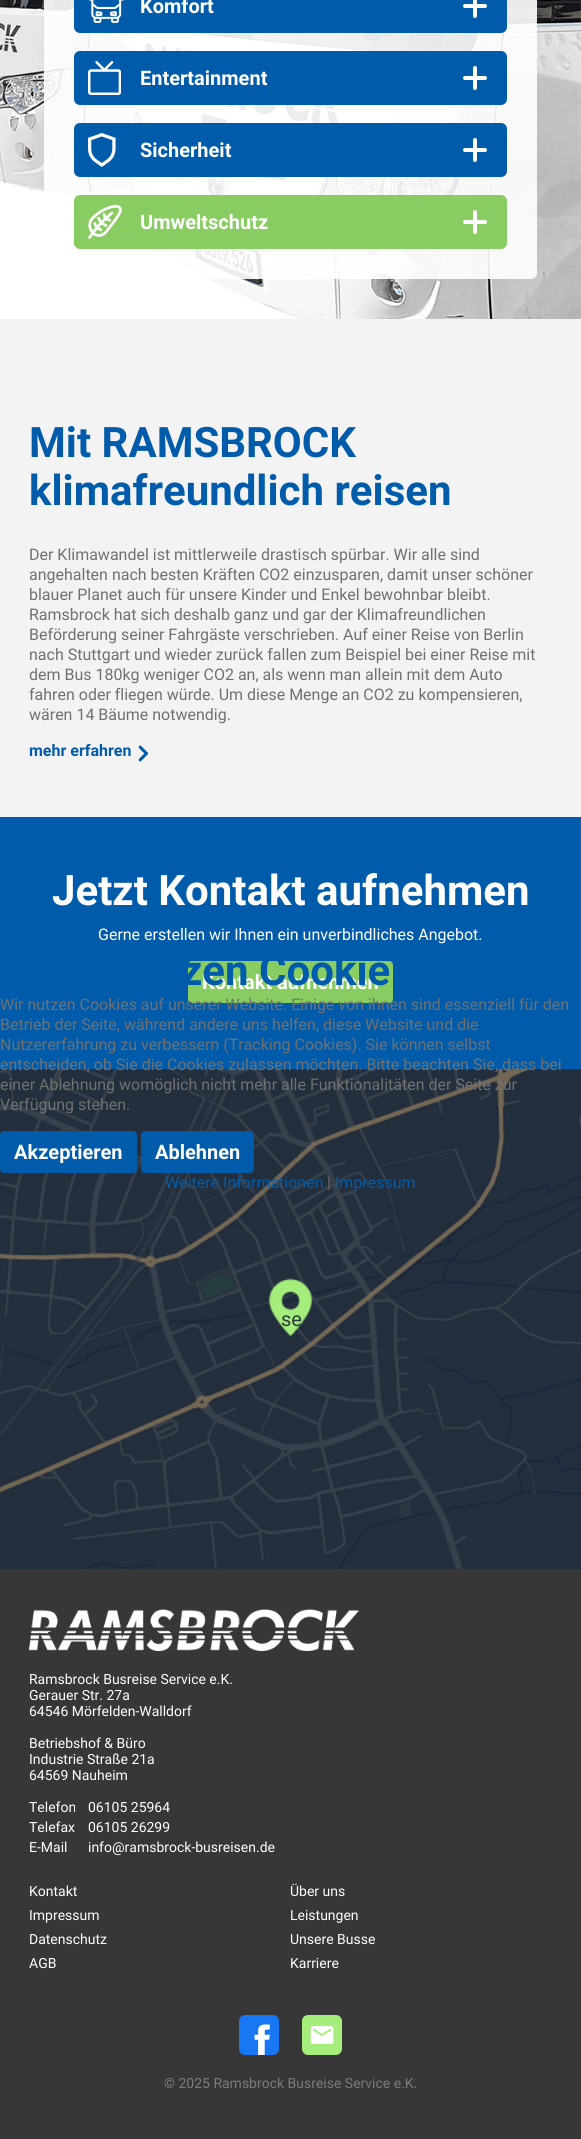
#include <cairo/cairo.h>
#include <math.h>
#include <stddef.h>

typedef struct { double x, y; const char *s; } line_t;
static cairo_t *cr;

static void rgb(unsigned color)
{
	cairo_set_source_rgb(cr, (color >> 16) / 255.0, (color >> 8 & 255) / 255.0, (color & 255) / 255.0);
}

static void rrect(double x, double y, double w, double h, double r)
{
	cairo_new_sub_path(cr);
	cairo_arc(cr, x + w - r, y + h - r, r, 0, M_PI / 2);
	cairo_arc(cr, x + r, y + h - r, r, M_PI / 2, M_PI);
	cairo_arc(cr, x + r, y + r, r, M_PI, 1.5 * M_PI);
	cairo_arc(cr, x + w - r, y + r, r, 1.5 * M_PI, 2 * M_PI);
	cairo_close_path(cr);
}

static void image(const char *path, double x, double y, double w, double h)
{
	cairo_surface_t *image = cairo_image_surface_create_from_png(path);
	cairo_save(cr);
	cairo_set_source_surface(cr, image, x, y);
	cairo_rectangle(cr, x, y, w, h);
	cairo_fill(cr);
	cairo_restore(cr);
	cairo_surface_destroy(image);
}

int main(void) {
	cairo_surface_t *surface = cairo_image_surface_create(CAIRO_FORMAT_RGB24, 581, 2139);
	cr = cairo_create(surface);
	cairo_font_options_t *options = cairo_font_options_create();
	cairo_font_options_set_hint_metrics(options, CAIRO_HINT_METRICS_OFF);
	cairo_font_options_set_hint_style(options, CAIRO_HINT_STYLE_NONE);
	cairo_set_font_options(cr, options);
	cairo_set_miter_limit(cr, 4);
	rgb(0xffffff);
	cairo_paint(cr);
	image("img/1.png", 0, 0, 581, 319);
	cairo_set_source_rgba(cr, 1, 1, 1, 0.9);
	rrect(44, -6, 493, 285, 6);
	cairo_fill(cr);
	rgb(0x005caa);
	rrect(74, -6, 433, 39, 6);
	cairo_fill(cr);
	image("img/2.png", 89, 0, 35, 23);
	cairo_new_path(cr);
	cairo_move_to(cr, 465, 6);
	cairo_line_to(cr, 485, 6);
	cairo_move_to(cr, 475, -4);
	cairo_line_to(cr, 475, 16);
	rgb(0xffffff);
	cairo_set_line_width(cr, 4);
	cairo_set_line_cap(cr, CAIRO_LINE_CAP_ROUND);
	cairo_stroke(cr);
	rgb(0x005caa);
	rrect(74, 51, 433, 54, 6);
	cairo_fill(cr);
	image("img/3.png", 88, 61, 33, 34);
	cairo_new_path(cr);
	cairo_move_to(cr, 465, 78);
	cairo_line_to(cr, 485, 78);
	cairo_move_to(cr, 475, 68);
	cairo_line_to(cr, 475, 88);
	rgb(0xffffff);
	cairo_stroke(cr);
	rgb(0x005caa);
	rrect(74, 123, 433, 54, 6);
	cairo_fill(cr);
	image("img/4.png", 88, 133, 28, 34);
	cairo_new_path(cr);
	cairo_move_to(cr, 465, 150);
	cairo_line_to(cr, 485, 150);
	cairo_move_to(cr, 475, 140);
	cairo_line_to(cr, 475, 160);
	rgb(0xffffff);
	cairo_stroke(cr);
	rgb(0x88cc62);
	rrect(74, 195, 433, 54, 6);
	cairo_fill(cr);
	image("img/5.png", 88, 205, 34, 34);
	cairo_new_path(cr);
	cairo_move_to(cr, 465, 222);
	cairo_line_to(cr, 485, 222);
	cairo_move_to(cr, 475, 212);
	cairo_line_to(cr, 475, 232);
	rgb(0xffffff);
	cairo_stroke(cr);
	rgb(0xf4f3f3);
	cairo_rectangle(cr, 0, 319, 581, 498);
	cairo_fill(cr);
	image("img/6.png", 138, 745, 10, 17);
	rgb(0x005caa);
	cairo_rectangle(cr, 0, 817, 581, 252);
	cairo_fill(cr);
	rgb(0x88cc62);
	rrect(188, 961, 205, 42, 4);
	cairo_fill(cr);
	image("img/7.png", 0, 1069, 581, 500);
	rgb(0x005caa);
	rrect(0, 1131, 137, 42, 4);
	cairo_fill(cr);
	rrect(141, 1131, 113, 42, 4);
	cairo_fill(cr);
	rgb(0x373737);
	cairo_rectangle(cr, 0, 1569, 581, 570);
	cairo_fill(cr);
	image("img/8.png", 29, 1609, 330, 42);
	image("img/9.png", 239, 2015, 40, 40);
	image("img/10.png", 302, 2015, 40, 40);
	cairo_select_font_face(cr, "Roboto", CAIRO_FONT_SLANT_NORMAL, CAIRO_FONT_WEIGHT_BOLD);
	cairo_set_font_size(cr, 20);
	rgb(0xffffff);
	{
		static const line_t items[] = {
			{140, 13, "Komfort"},
			{140, 85, "Entertainment"},
			{140, 157, "Sicherheit"},
			{140, 229, "Umweltschutz"},
		};
		for (size_t i = 0; i < sizeof items / sizeof *items; i++) {
			cairo_move_to(cr, items[i].x, items[i].y);
			cairo_show_text(cr, items[i].s);
		}
	}
	cairo_set_font_size(cr, 42);
	rgb(0x005caa);
	cairo_move_to(cr, 29, 457);
	cairo_show_text(cr, "Mit RAMSBROCK");
	cairo_move_to(cr, 29, 505);
	cairo_show_text(cr, "klimafreundlich reisen");
	cairo_select_font_face(cr, "Roboto", CAIRO_FONT_SLANT_NORMAL, CAIRO_FONT_WEIGHT_NORMAL);
	cairo_set_font_size(cr, 16);
	rgb(0x707070);
	{
		static const line_t items[] = {
			{29, 560, "Der Klimawandel ist mittlerweile drastisch spürbar. Wir alle sind"},
			{29, 580, "angehalten nach besten Kräften CO2 einzusparen, damit unser schöner"},
			{29, 600, "blauer Planet auch für unsere Kinder und Enkel bewohnbar bleibt."},
			{29, 620, "Ramsbrock hat sich deshalb ganz und gar der Klimafreundlichen"},
			{29, 640, "Beförderung seiner Fahrgäste verschrieben. Auf einer Reise von Berlin"},
			{29, 660, "nach Stuttgart und wieder zurück fallen zum Beispiel bei einer Reise mit"},
			{29, 680, "dem Bus 180kg weniger CO2 an, als wenn man allein mit dem Auto"},
			{29, 700, "fahren oder fliegen würde. Um diese Menge an CO2 zu kompensieren,"},
			{29, 720, "wären 14 Bäume notwendig."},
		};
		for (size_t i = 0; i < sizeof items / sizeof *items; i++) {
			cairo_move_to(cr, items[i].x, items[i].y);
			cairo_show_text(cr, items[i].s);
		}
	}
	cairo_select_font_face(cr, "Roboto", CAIRO_FONT_SLANT_NORMAL, CAIRO_FONT_WEIGHT_BOLD);
	rgb(0x005caa);
	cairo_move_to(cr, 29, 756);
	cairo_show_text(cr, "mehr erfahren");
	cairo_set_font_size(cr, 42);
	rgb(0xffffff);
	cairo_move_to(cr, 52, 905);
	cairo_show_text(cr, "Jetzt Kontakt aufnehmen");
	cairo_select_font_face(cr, "Roboto", CAIRO_FONT_SLANT_NORMAL, CAIRO_FONT_WEIGHT_NORMAL);
	cairo_set_font_size(cr, 16);
	cairo_move_to(cr, 98, 940);
	cairo_show_text(cr, "Gerne erstellen wir Ihnen ein unverbindliches Angebot.");
	cairo_select_font_face(cr, "Roboto", CAIRO_FONT_SLANT_NORMAL, CAIRO_FONT_WEIGHT_BOLD);
	cairo_set_font_size(cr, 20);
	cairo_move_to(cr, 202, 989);
	cairo_show_text(cr, "Kontakt aufnehmen");
	cairo_set_font_size(cr, 42);
	rgb(0x005caa);
	cairo_move_to(cr, 181, 985);
	cairo_show_text(cr, "zen Cookie");
	cairo_select_font_face(cr, "Roboto", CAIRO_FONT_SLANT_NORMAL, CAIRO_FONT_WEIGHT_NORMAL);
	cairo_set_font_size(cr, 16);
	rgb(0x707070);
	{
		static const line_t items[] = {
			{0, 1010, "Wir nutzen Cookies auf unserer Website. Einige von ihnen sind essenziell für den"},
			{0, 1030, "Betrieb der Seite, während andere uns helfen, diese Website und die"},
			{0, 1050, "Nutzererfahrung zu verbessern (Tracking Cookies). Sie können selbst"},
			{0, 1070, "entscheiden, ob Sie die Cookies zulassen möchten. Bitte beachten Sie, dass bei"},
			{0, 1090, "einer Ablehnung womöglich nicht mehr alle Funktionalitäten der Seite zur"},
			{0, 1110, "Verfügung stehen."},
		};
		for (size_t i = 0; i < sizeof items / sizeof *items; i++) {
			cairo_move_to(cr, items[i].x, items[i].y);
			cairo_show_text(cr, items[i].s);
		}
	}
	cairo_select_font_face(cr, "Roboto", CAIRO_FONT_SLANT_NORMAL, CAIRO_FONT_WEIGHT_BOLD);
	cairo_set_font_size(cr, 20);
	rgb(0xffffff);
	cairo_move_to(cr, 14, 1159);
	cairo_show_text(cr, "Akzeptieren");
	cairo_move_to(cr, 155, 1159);
	cairo_show_text(cr, "Ablehnen");
	cairo_select_font_face(cr, "Roboto", CAIRO_FONT_SLANT_NORMAL, CAIRO_FONT_WEIGHT_NORMAL);
	cairo_set_font_size(cr, 16);
	rgb(0x005caa);
	cairo_move_to(cr, 165, 1188);
	cairo_show_text(cr, "Weitere Informationen");
	rgb(0x707070);
	cairo_move_to(cr, 327, 1188);
	cairo_show_text(cr, "|");
	rgb(0x005caa);
	cairo_move_to(cr, 335, 1188);
	cairo_show_text(cr, "Impressum");
	cairo_set_font_size(cr, 20);
	rgb(0x2d3b42);
	cairo_move_to(cr, 281, 1326);
	cairo_show_text(cr, "se");
	cairo_set_font_size(cr, 14);
	rgb(0xffffff);
	{
		static const line_t items[] = {
			{29, 1684, "Ramsbrock Busreise Service e.K."},
			{29, 1700, "Gerauer Str. 27a"},
			{29, 1716, "64546 Mörfelden-Walldorf"},
			{29, 1748, "Betriebshof & Büro"},
			{29, 1764, "Industrie Straße 21a"},
			{29, 1780, "64569 Nauheim"},
			{29, 1812, "Telefon"},
			{88, 1812, "06105 25964"},
			{29, 1832, "Telefax"},
			{88, 1832, "06105 26299"},
			{29, 1852, "E-Mail"},
			{88, 1852, "info@ramsbrock-busreisen.de"},
			{29, 1896, "Kontakt"},
			{290, 1896, "Über uns"},
			{29, 1920, "Impressum"},
			{290, 1920, "Leistungen"},
			{29, 1944, "Datenschutz"},
			{290, 1944, "Unsere Busse"},
			{29, 1968, "AGB"},
			{290, 1968, "Karriere"},
		};
		for (size_t i = 0; i < sizeof items / sizeof *items; i++) {
			cairo_move_to(cr, items[i].x, items[i].y);
			cairo_show_text(cr, items[i].s);
		}
	}
	rgb(0x7b7b7b);
	cairo_move_to(cr, 164, 2088);
	cairo_show_text(cr, "© 2025 Ramsbrock Busreise Service e.K.");
	cairo_surface_write_to_png(surface, "page.png");
	cairo_font_options_destroy(options);
	cairo_destroy(cr);
	cairo_surface_destroy(surface);
	return 0;
}
